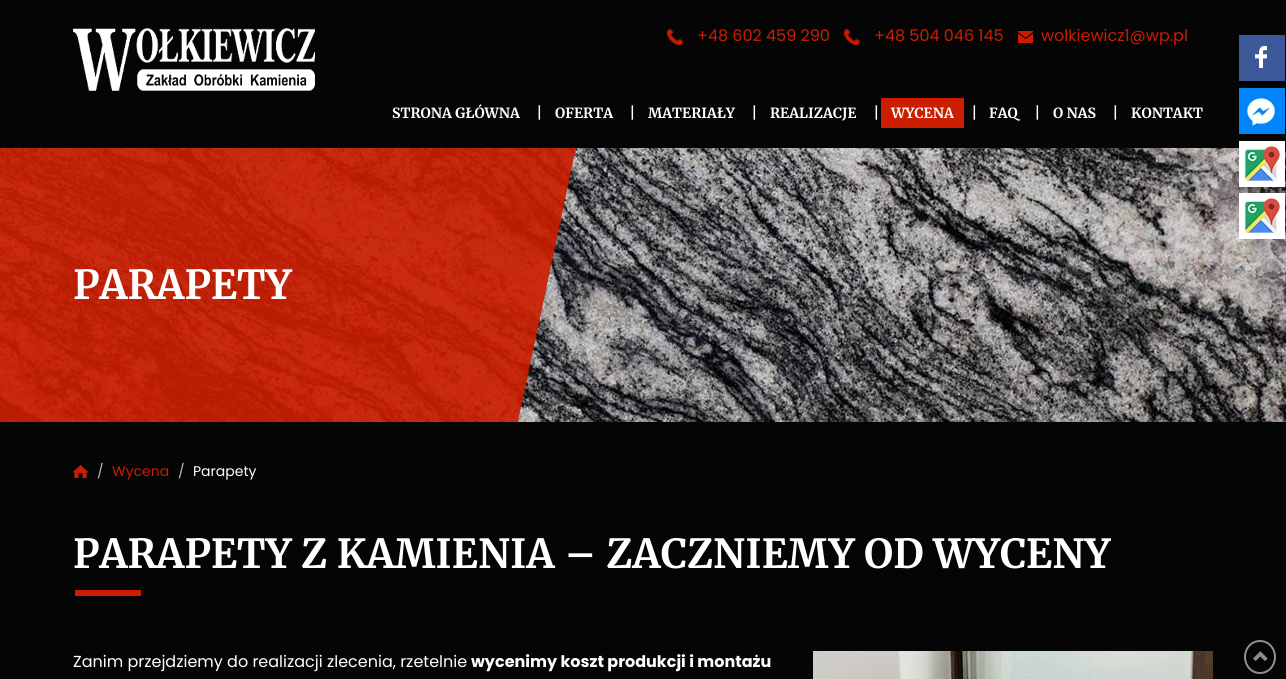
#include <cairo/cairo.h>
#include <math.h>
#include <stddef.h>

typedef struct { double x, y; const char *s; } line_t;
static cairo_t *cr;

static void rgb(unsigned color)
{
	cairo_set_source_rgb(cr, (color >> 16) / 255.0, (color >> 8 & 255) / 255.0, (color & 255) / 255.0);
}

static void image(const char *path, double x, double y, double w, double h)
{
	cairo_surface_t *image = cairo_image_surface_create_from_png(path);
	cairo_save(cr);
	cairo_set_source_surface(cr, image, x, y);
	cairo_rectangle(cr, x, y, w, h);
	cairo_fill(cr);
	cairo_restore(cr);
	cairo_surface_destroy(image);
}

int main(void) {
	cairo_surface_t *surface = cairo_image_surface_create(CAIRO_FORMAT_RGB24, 1286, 679);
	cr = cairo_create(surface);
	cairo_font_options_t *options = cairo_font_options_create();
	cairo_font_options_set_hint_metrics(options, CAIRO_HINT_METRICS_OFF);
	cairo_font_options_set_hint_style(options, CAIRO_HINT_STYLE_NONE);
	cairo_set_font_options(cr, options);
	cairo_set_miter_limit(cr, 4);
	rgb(0x050505);
	cairo_paint(cr);
	image("img/1.png", 73, 28, 242, 63);
	image("img/2.png", 667, 29, 17, 16);
	image("img/3.png", 844, 29, 17, 16);
	image("img/4.png", 1018, 31, 15, 12);
	rgb(0xcc1d00);
	cairo_rectangle(cr, 881, 98, 83, 30);
	cairo_fill(cr);
	image("img/6.png", 0, 148, 1286, 274);
	image("img/5.png", 0, 148, 576, 274);
	image("img/7.png", 73, 465, 15, 13);
	image("img/8.png", 75, 590, 66, 6);
	image("img/9.png", 813, 651, 400, 28);
	cairo_new_path(cr);
	cairo_move_to(cr, 1260, 641);
	cairo_curve_to(cr, 1268.5, 641, 1275, 648, 1275, 657);
	cairo_curve_to(cr, 1275, 666, 1268.5, 673, 1260, 673);
	cairo_curve_to(cr, 1251.5, 673, 1245, 666, 1245, 657);
	cairo_curve_to(cr, 1245, 648, 1251.5, 641, 1260, 641);
	cairo_close_path(cr);
	rgb(0x8c8f91);
	cairo_stroke(cr);
	image("img/10.png", 1253, 651, 15, 10);
	image("img/11.png", 1239, 35, 46, 46);
	image("img/12.png", 1239, 88, 46, 46);
	image("img/13.png", 1239, 141, 46, 46);
	image("img/13.png", 1239, 193, 46, 46);
	cairo_select_font_face(cr, "Poppins", CAIRO_FONT_SLANT_NORMAL, CAIRO_FONT_WEIGHT_NORMAL);
	cairo_set_font_size(cr, 16);
	rgb(0xcc1d00);
	{
		static const line_t items[] = {
			{697, 41, "+48 602 459 290"},
			{874, 41, "+48 504 046 145"},
			{1041, 41, "wolkiewicz1@wp.pl"},
		};
		for (size_t i = 0; i < sizeof items / sizeof *items; i++) {
			cairo_move_to(cr, items[i].x, items[i].y);
			cairo_show_text(cr, items[i].s);
		}
	}
	cairo_select_font_face(cr, "Merriweather", CAIRO_FONT_SLANT_NORMAL, CAIRO_FONT_WEIGHT_BOLD);
	cairo_set_font_size(cr, 14);
	rgb(0xffffff);
	cairo_move_to(cr, 392, 118);
	cairo_show_text(cr, "STRONA GŁÓWNA");
	cairo_select_font_face(cr, "Poppins", CAIRO_FONT_SLANT_NORMAL, CAIRO_FONT_WEIGHT_NORMAL);
	cairo_set_font_size(cr, 16);
	cairo_move_to(cr, 537, 118);
	cairo_show_text(cr, "|");
	cairo_select_font_face(cr, "Merriweather", CAIRO_FONT_SLANT_NORMAL, CAIRO_FONT_WEIGHT_BOLD);
	cairo_set_font_size(cr, 14);
	cairo_move_to(cr, 555, 118);
	cairo_show_text(cr, "OFERTA");
	cairo_select_font_face(cr, "Poppins", CAIRO_FONT_SLANT_NORMAL, CAIRO_FONT_WEIGHT_NORMAL);
	cairo_set_font_size(cr, 16);
	cairo_move_to(cr, 630, 118);
	cairo_show_text(cr, "|");
	cairo_select_font_face(cr, "Merriweather", CAIRO_FONT_SLANT_NORMAL, CAIRO_FONT_WEIGHT_BOLD);
	cairo_set_font_size(cr, 14);
	cairo_move_to(cr, 648, 118);
	cairo_show_text(cr, "MATERIAŁY");
	cairo_select_font_face(cr, "Poppins", CAIRO_FONT_SLANT_NORMAL, CAIRO_FONT_WEIGHT_NORMAL);
	cairo_set_font_size(cr, 16);
	cairo_move_to(cr, 752, 118);
	cairo_show_text(cr, "|");
	cairo_select_font_face(cr, "Merriweather", CAIRO_FONT_SLANT_NORMAL, CAIRO_FONT_WEIGHT_BOLD);
	cairo_set_font_size(cr, 14);
	cairo_move_to(cr, 770, 118);
	cairo_show_text(cr, "REALIZACJE");
	cairo_select_font_face(cr, "Poppins", CAIRO_FONT_SLANT_NORMAL, CAIRO_FONT_WEIGHT_NORMAL);
	cairo_set_font_size(cr, 16);
	cairo_move_to(cr, 874, 118);
	cairo_show_text(cr, "|");
	cairo_select_font_face(cr, "Merriweather", CAIRO_FONT_SLANT_NORMAL, CAIRO_FONT_WEIGHT_BOLD);
	cairo_set_font_size(cr, 14);
	cairo_move_to(cr, 891, 118);
	cairo_show_text(cr, "WYCENA");
	cairo_select_font_face(cr, "Poppins", CAIRO_FONT_SLANT_NORMAL, CAIRO_FONT_WEIGHT_NORMAL);
	cairo_set_font_size(cr, 16);
	cairo_move_to(cr, 972, 118);
	cairo_show_text(cr, "|");
	cairo_select_font_face(cr, "Merriweather", CAIRO_FONT_SLANT_NORMAL, CAIRO_FONT_WEIGHT_BOLD);
	cairo_set_font_size(cr, 14);
	cairo_move_to(cr, 989, 118);
	cairo_show_text(cr, "FAQ");
	cairo_select_font_face(cr, "Poppins", CAIRO_FONT_SLANT_NORMAL, CAIRO_FONT_WEIGHT_NORMAL);
	cairo_set_font_size(cr, 16);
	cairo_move_to(cr, 1035, 118);
	cairo_show_text(cr, "|");
	cairo_select_font_face(cr, "Merriweather", CAIRO_FONT_SLANT_NORMAL, CAIRO_FONT_WEIGHT_BOLD);
	cairo_set_font_size(cr, 14);
	cairo_move_to(cr, 1053, 118);
	cairo_show_text(cr, "O NAS");
	cairo_select_font_face(cr, "Poppins", CAIRO_FONT_SLANT_NORMAL, CAIRO_FONT_WEIGHT_NORMAL);
	cairo_set_font_size(cr, 16);
	cairo_move_to(cr, 1113, 118);
	cairo_show_text(cr, "|");
	cairo_select_font_face(cr, "Merriweather", CAIRO_FONT_SLANT_NORMAL, CAIRO_FONT_WEIGHT_BOLD);
	cairo_set_font_size(cr, 14);
	cairo_move_to(cr, 1131, 118);
	cairo_show_text(cr, "KONTAKT");
	cairo_set_font_size(cr, 40);
	cairo_move_to(cr, 73, 299);
	cairo_show_text(cr, "PARAPETY");
	cairo_select_font_face(cr, "Poppins", CAIRO_FONT_SLANT_NORMAL, CAIRO_FONT_WEIGHT_NORMAL);
	cairo_set_font_size(cr, 14);
	rgb(0xb8b8b8);
	cairo_move_to(cr, 97, 476);
	cairo_show_text(cr, "/");
	rgb(0xcc1d00);
	cairo_move_to(cr, 112, 476);
	cairo_show_text(cr, "Wycena");
	rgb(0xb8b8b8);
	cairo_move_to(cr, 178, 476);
	cairo_show_text(cr, "/");
	rgb(0xffffff);
	cairo_move_to(cr, 193, 476);
	cairo_show_text(cr, "Parapety");
	cairo_select_font_face(cr, "Merriweather", CAIRO_FONT_SLANT_NORMAL, CAIRO_FONT_WEIGHT_BOLD);
	cairo_set_font_size(cr, 40);
	cairo_move_to(cr, 73, 568);
	cairo_show_text(cr, "PARAPETY Z KAMIENIA – ZACZNIEMY OD WYCENY");
	cairo_select_font_face(cr, "Poppins", CAIRO_FONT_SLANT_NORMAL, CAIRO_FONT_WEIGHT_NORMAL);
	cairo_set_font_size(cr, 16);
	cairo_move_to(cr, 73, 667);
	cairo_show_text(cr, "Zanim przejdziemy do realizacji zlecenia, rzetelnie");
	cairo_select_font_face(cr, "Poppins", CAIRO_FONT_SLANT_NORMAL, CAIRO_FONT_WEIGHT_BOLD);
	cairo_move_to(cr, 471, 667);
	cairo_show_text(cr, "wycenimy koszt produkcji i montażu");
	cairo_surface_write_to_png(surface, "page.png");
	cairo_font_options_destroy(options);
	cairo_destroy(cr);
	cairo_surface_destroy(surface);
	return 0;
}
